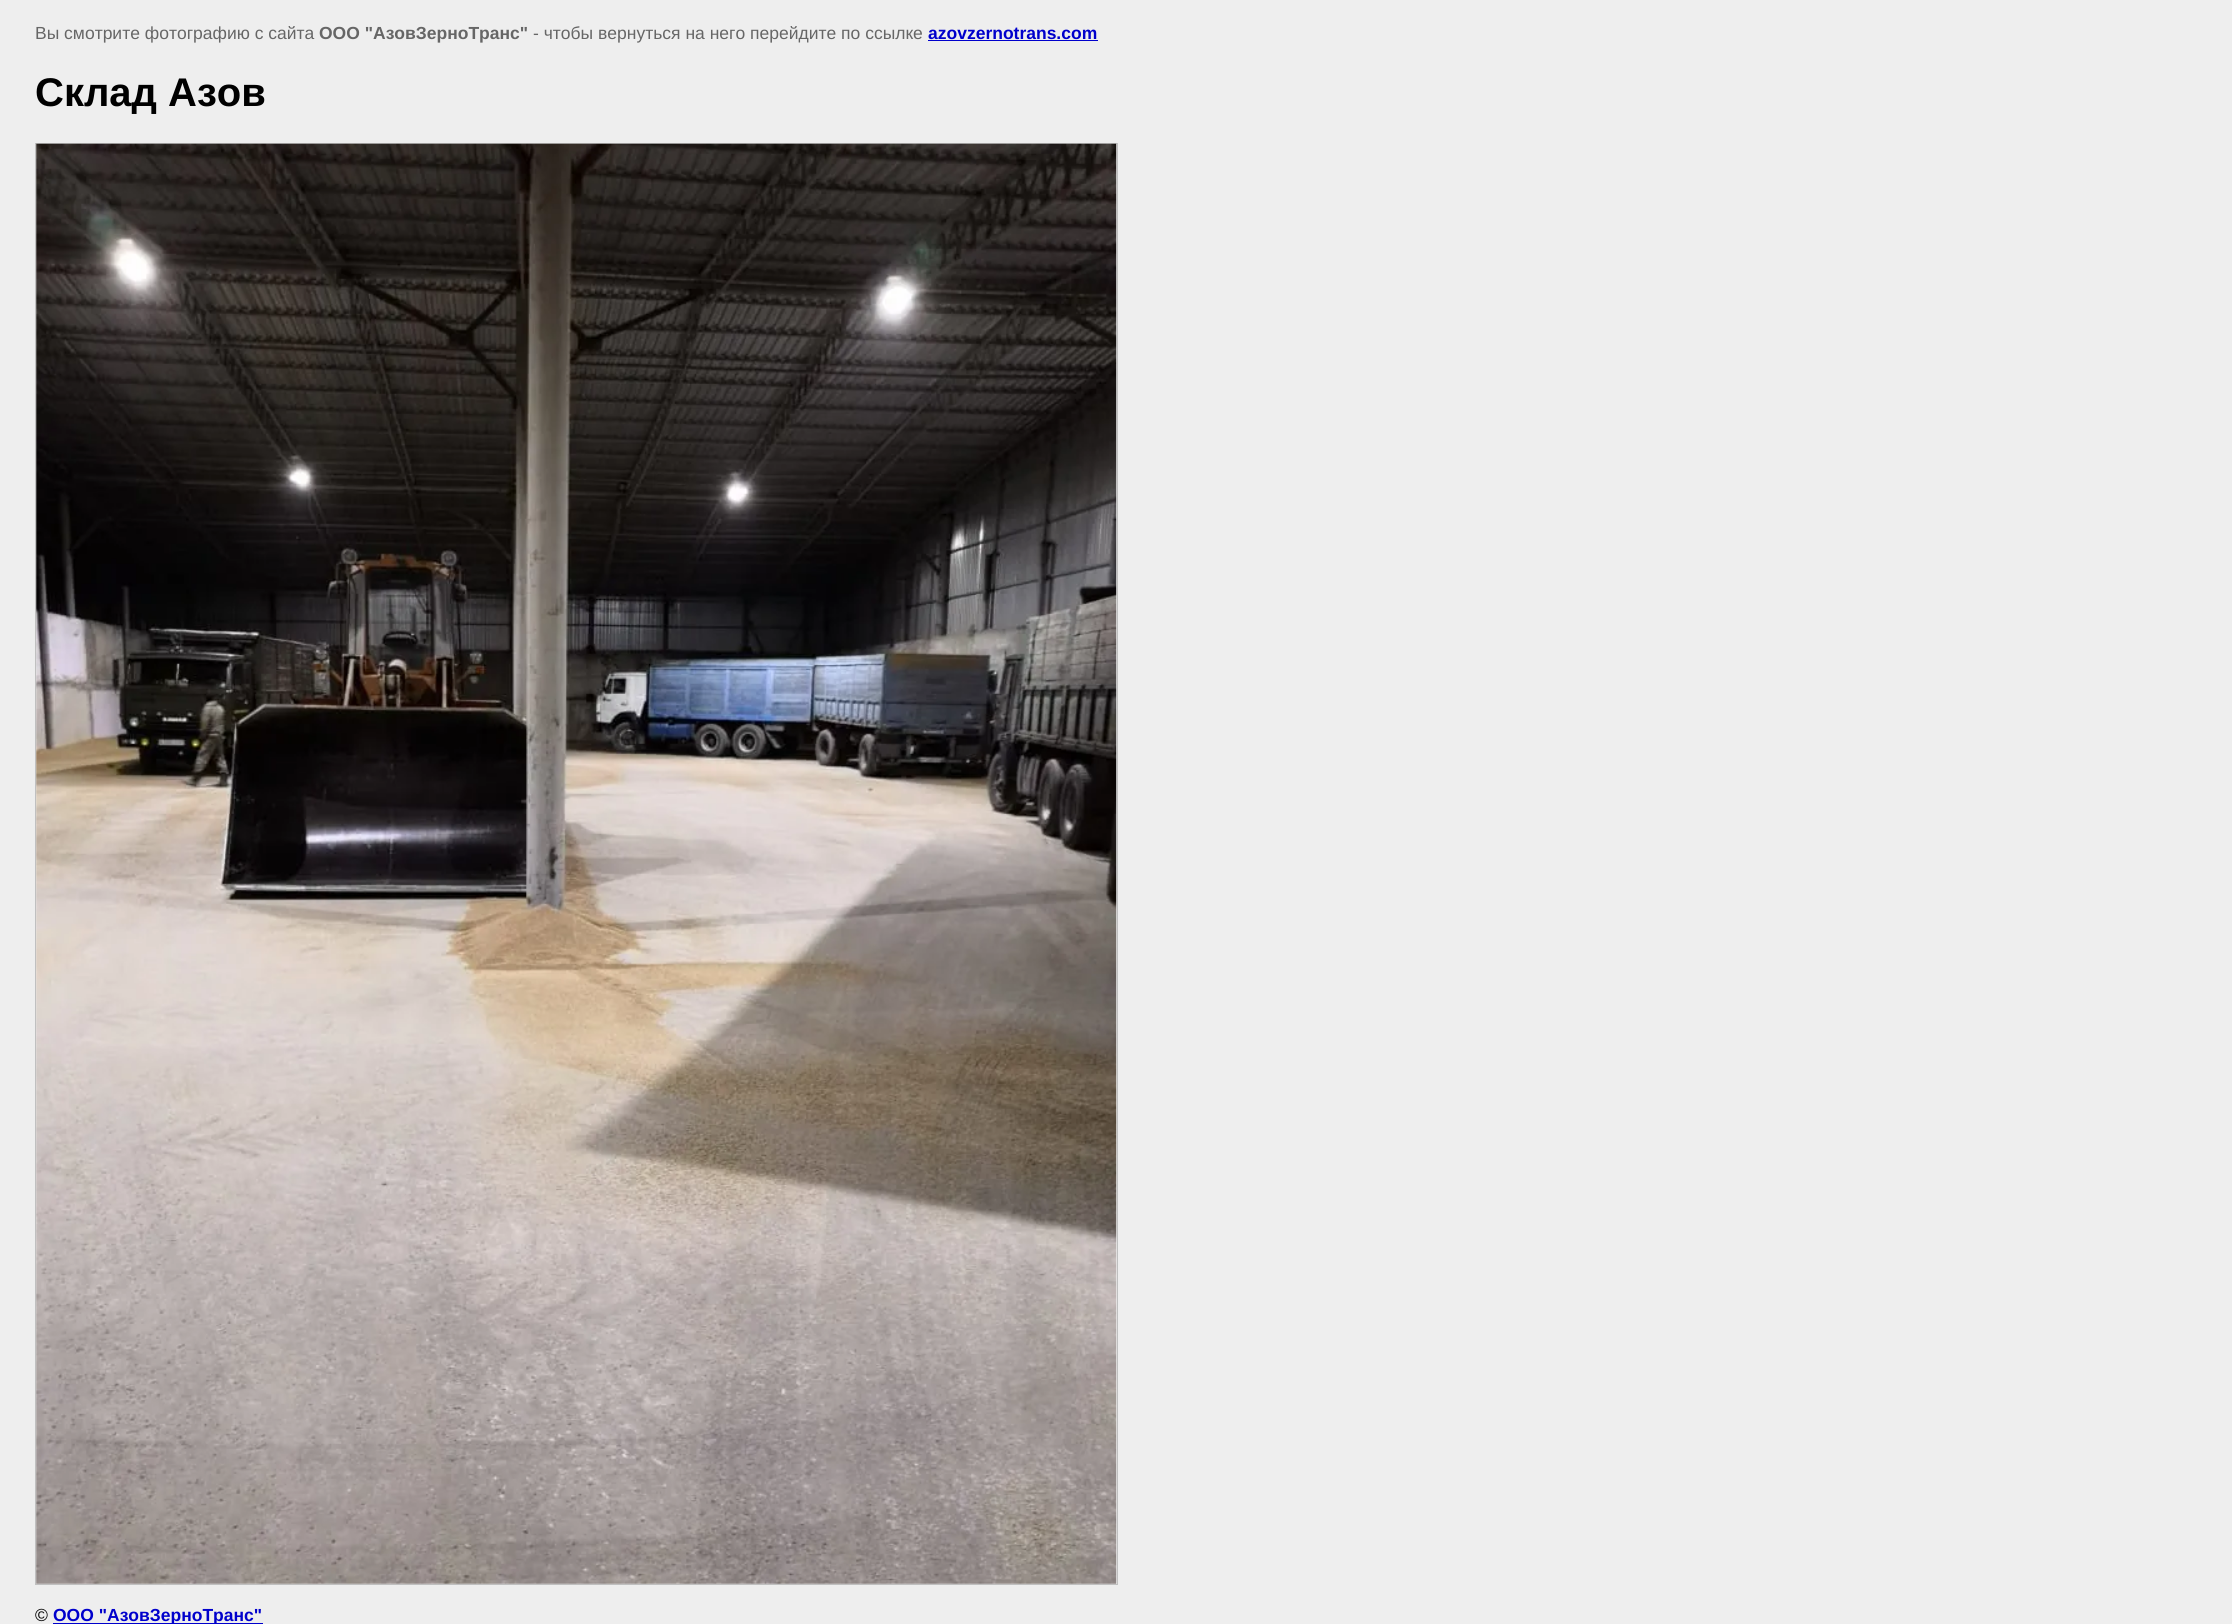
#include <cairo/cairo.h>
#include <math.h>
#include <stddef.h>

static cairo_t *cr;

static void rgb(unsigned color)
{
	cairo_set_source_rgb(cr, (color >> 16) / 255.0, (color >> 8 & 255) / 255.0, (color & 255) / 255.0);
}

static void image(const char *path, double x, double y, double w, double h)
{
	cairo_surface_t *image = cairo_image_surface_create_from_png(path);
	cairo_save(cr);
	cairo_set_source_surface(cr, image, x, y);
	cairo_rectangle(cr, x, y, w, h);
	cairo_fill(cr);
	cairo_restore(cr);
	cairo_surface_destroy(image);
}

int main(void) {
	cairo_surface_t *surface = cairo_image_surface_create(CAIRO_FORMAT_RGB24, 2232, 1624);
	cr = cairo_create(surface);
	cairo_font_options_t *options = cairo_font_options_create();
	cairo_font_options_set_hint_metrics(options, CAIRO_HINT_METRICS_OFF);
	cairo_font_options_set_hint_style(options, CAIRO_HINT_STYLE_NONE);
	cairo_set_font_options(cr, options);
	cairo_set_miter_limit(cr, 4);
	rgb(0xeeeeee);
	cairo_paint(cr);
	rgb(0x0000cc);
	cairo_rectangle(cr, 928, 40, 170, 1);
	cairo_fill(cr);
	cairo_rectangle(cr, 35.5, 143.5, 1082, 1441);
	rgb(0xc0c0c0);
	cairo_set_line_width(cr, 1);
	cairo_stroke(cr);
	image("img/1.png", 36, 143, 1081, 1441);
	rgb(0x0000cc);
	cairo_rectangle(cr, 53, 1623, 210, 1);
	cairo_fill(cr);
	cairo_select_font_face(cr, "Liberation Sans", CAIRO_FONT_SLANT_NORMAL, CAIRO_FONT_WEIGHT_NORMAL);
	cairo_set_font_size(cr, 17.5);
	rgb(0x666666);
	cairo_move_to(cr, 35, 39);
	cairo_show_text(cr, "Вы смотрите фотографию с сайта");
	cairo_select_font_face(cr, "Liberation Sans", CAIRO_FONT_SLANT_NORMAL, CAIRO_FONT_WEIGHT_BOLD);
	cairo_move_to(cr, 319, 39);
	cairo_show_text(cr, "ООО \"АзовЗерноТранс\"");
	cairo_select_font_face(cr, "Liberation Sans", CAIRO_FONT_SLANT_NORMAL, CAIRO_FONT_WEIGHT_NORMAL);
	cairo_move_to(cr, 533, 39);
	cairo_show_text(cr, "- чтобы вернуться на него перейдите по ссылке");
	cairo_select_font_face(cr, "Liberation Sans", CAIRO_FONT_SLANT_NORMAL, CAIRO_FONT_WEIGHT_BOLD);
	rgb(0x0000cc);
	cairo_move_to(cr, 928, 39);
	cairo_show_text(cr, "azovzernotrans.com");
	cairo_set_font_size(cr, 40);
	rgb(0x000000);
	cairo_move_to(cr, 35, 106);
	cairo_show_text(cr, "Склад Азов");
	cairo_select_font_face(cr, "Liberation Sans", CAIRO_FONT_SLANT_NORMAL, CAIRO_FONT_WEIGHT_NORMAL);
	cairo_set_font_size(cr, 17.5);
	cairo_move_to(cr, 35, 1621);
	cairo_show_text(cr, "©");
	cairo_select_font_face(cr, "Liberation Sans", CAIRO_FONT_SLANT_NORMAL, CAIRO_FONT_WEIGHT_BOLD);
	rgb(0x0000cc);
	cairo_move_to(cr, 53, 1621);
	cairo_show_text(cr, "ООО \"АзовЗерноТранс\"");
	cairo_surface_write_to_png(surface, "page.png");
	cairo_font_options_destroy(options);
	cairo_destroy(cr);
	cairo_surface_destroy(surface);
	return 0;
}
